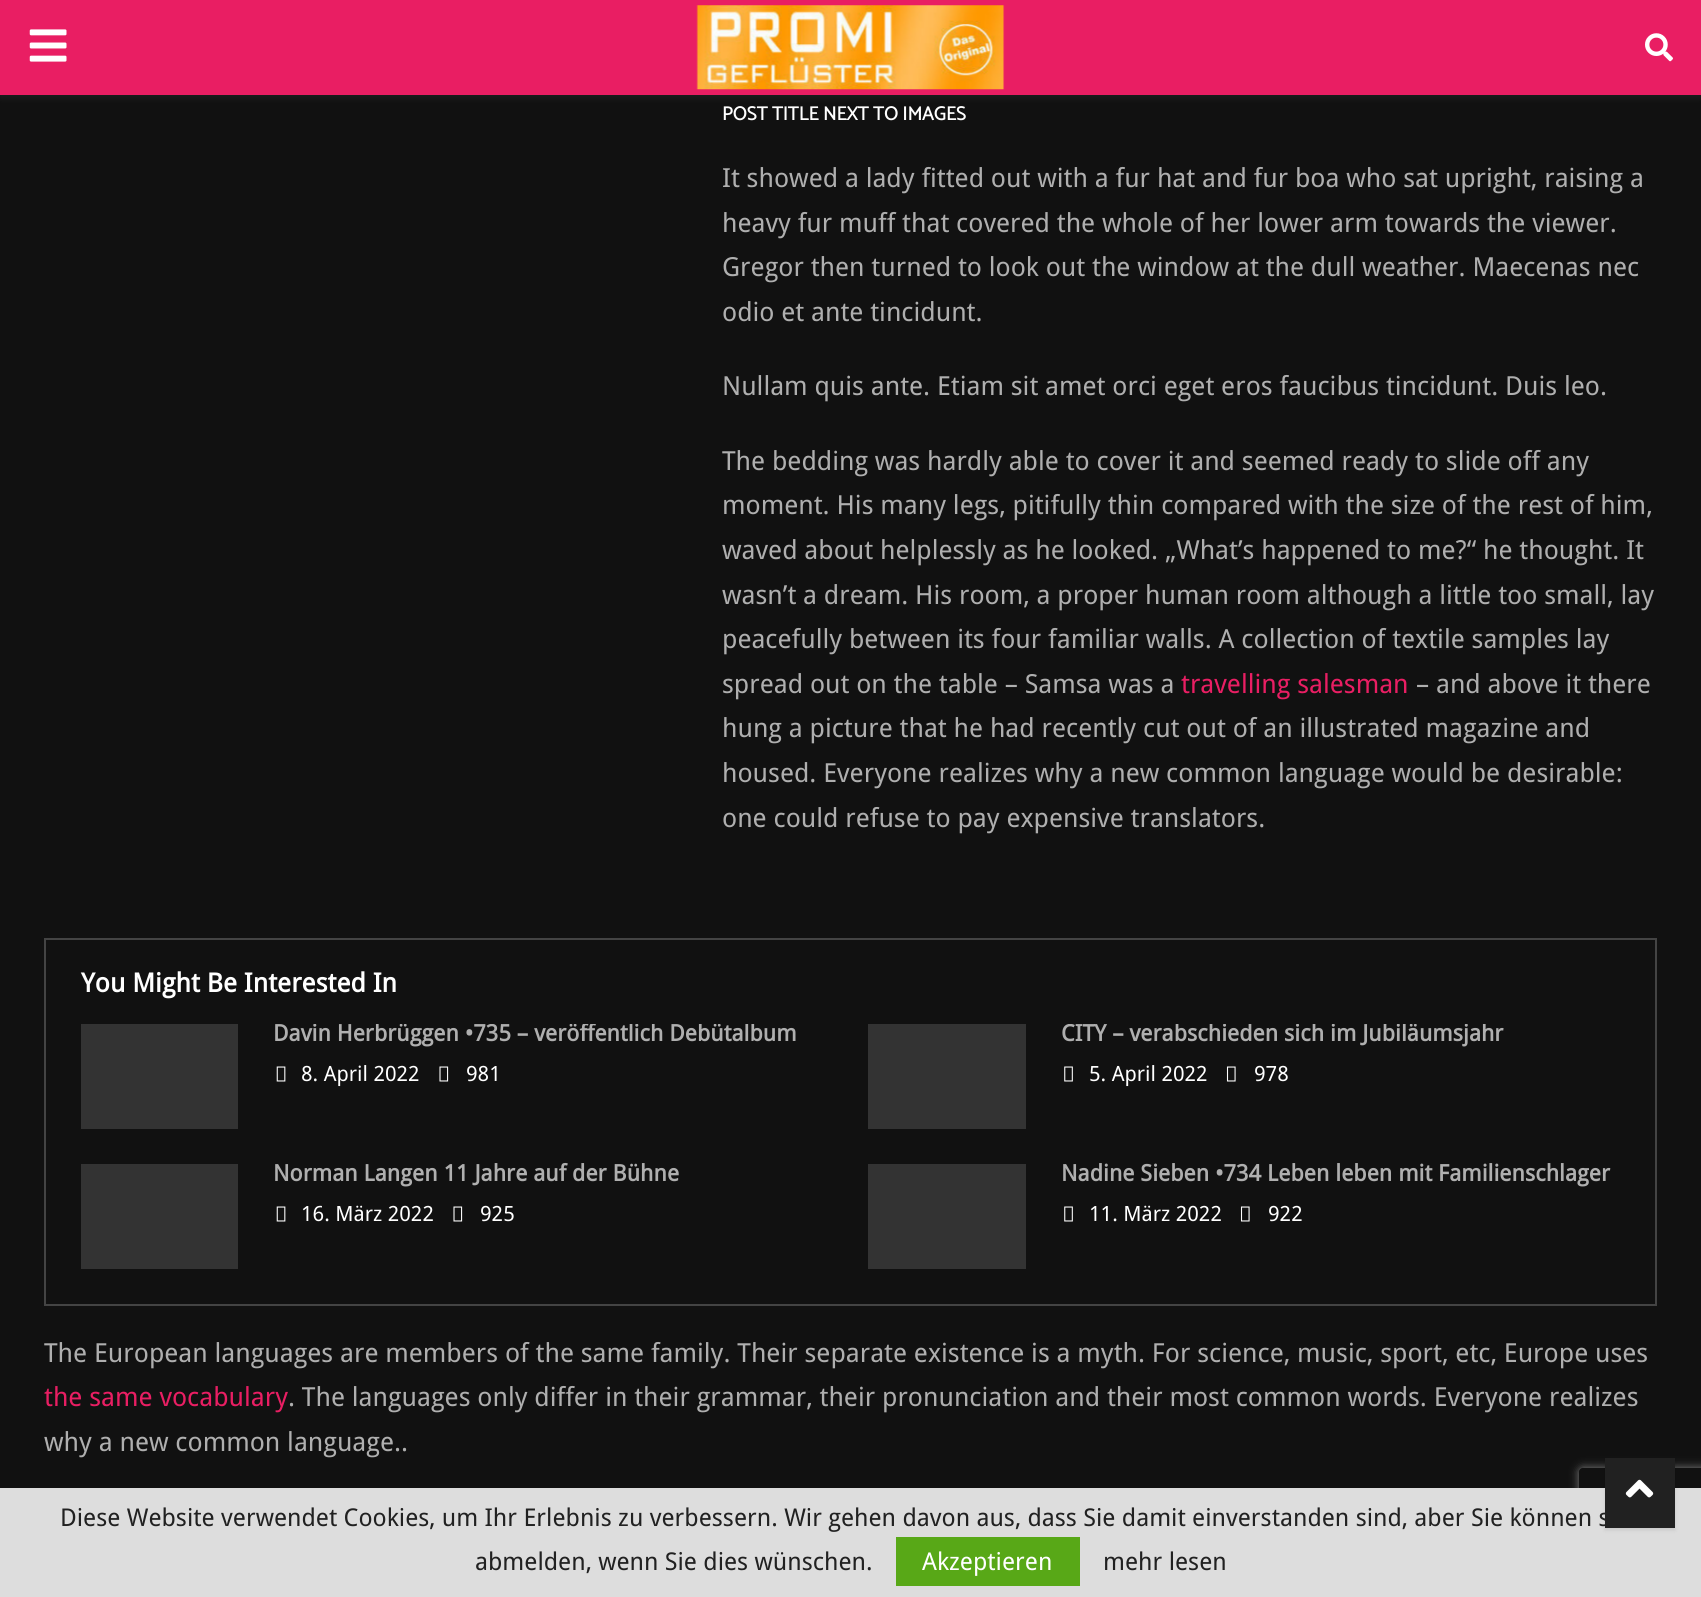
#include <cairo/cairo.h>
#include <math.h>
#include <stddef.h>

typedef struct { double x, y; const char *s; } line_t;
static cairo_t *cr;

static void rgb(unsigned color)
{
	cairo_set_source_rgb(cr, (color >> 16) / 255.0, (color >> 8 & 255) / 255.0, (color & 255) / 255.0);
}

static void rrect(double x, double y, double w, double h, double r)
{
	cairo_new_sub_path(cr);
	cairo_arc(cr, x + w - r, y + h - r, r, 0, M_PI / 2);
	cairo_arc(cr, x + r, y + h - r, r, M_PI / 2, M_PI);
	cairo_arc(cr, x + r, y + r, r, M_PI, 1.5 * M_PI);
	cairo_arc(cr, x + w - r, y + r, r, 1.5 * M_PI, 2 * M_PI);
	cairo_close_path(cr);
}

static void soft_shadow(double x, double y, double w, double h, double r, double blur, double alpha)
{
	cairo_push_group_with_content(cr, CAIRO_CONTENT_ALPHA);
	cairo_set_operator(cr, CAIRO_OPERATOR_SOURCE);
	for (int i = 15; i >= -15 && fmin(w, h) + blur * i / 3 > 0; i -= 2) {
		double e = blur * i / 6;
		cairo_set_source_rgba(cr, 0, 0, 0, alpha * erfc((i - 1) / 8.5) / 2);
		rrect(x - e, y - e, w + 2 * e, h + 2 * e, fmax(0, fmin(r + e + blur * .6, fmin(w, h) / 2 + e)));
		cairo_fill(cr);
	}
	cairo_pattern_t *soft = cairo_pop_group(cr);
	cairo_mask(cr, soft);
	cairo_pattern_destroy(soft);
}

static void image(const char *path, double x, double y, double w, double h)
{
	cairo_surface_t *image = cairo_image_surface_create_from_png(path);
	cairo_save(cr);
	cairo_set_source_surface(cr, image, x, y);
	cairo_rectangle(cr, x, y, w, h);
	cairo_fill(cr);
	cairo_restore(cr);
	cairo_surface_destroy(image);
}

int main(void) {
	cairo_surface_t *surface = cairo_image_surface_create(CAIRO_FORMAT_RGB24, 1701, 1597);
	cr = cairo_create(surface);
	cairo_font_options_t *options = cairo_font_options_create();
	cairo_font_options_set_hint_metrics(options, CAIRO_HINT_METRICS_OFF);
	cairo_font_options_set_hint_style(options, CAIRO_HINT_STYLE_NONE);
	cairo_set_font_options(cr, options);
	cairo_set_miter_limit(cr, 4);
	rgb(0x111111);
	cairo_paint(cr);
	rgb(0xffffff);
	soft_shadow(0, 2, 1701, 94, 0, 4.5, 0.08);
	rgb(0xe91e63);
	cairo_rectangle(cr, 0, 0, 1701, 95);
	cairo_fill(cr);
	image("img/1.png", 29, 29, 38, 33);
	image("img/2.png", 696, 5, 309, 85);
	image("img/3.png", 1645, 33, 28, 29);
	cairo_rectangle(cr, 45, 939, 1611, 366);
	rgb(0x444444);
	cairo_stroke(cr);
	rgb(0x333333);
	cairo_rectangle(cr, 81, 1024, 157, 105);
	cairo_fill(cr);
	image("img/4.png", 276, 1066, 10, 16);
	image("img/5.png", 439, 1066, 10, 16);
	cairo_rectangle(cr, 868, 1024, 158, 105);
	cairo_fill(cr);
	image("img/6.png", 1064, 1066, 9, 16);
	image("img/7.png", 1226, 1066, 10, 16);
	cairo_rectangle(cr, 81, 1164, 157, 105);
	cairo_fill(cr);
	image("img/4.png", 276, 1206, 10, 16);
	image("img/5.png", 453, 1206, 10, 16);
	cairo_rectangle(cr, 868, 1164, 158, 105);
	cairo_fill(cr);
	image("img/6.png", 1064, 1206, 9, 16);
	image("img/7.png", 1240, 1206, 10, 16);
	cairo_save(cr);
	cairo_set_fill_rule(cr, CAIRO_FILL_RULE_EVEN_ODD);
	cairo_new_path(cr);
	cairo_move_to(cr, 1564, 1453);
	cairo_line_to(cr, 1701, 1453);
	cairo_line_to(cr, 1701, 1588);
	cairo_line_to(cr, 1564, 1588);
	cairo_close_path(cr);
	cairo_move_to(cr, 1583, 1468);
	cairo_line_to(cr, 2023, 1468);
	cairo_curve_to(cr, 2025, 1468, 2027, 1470, 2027, 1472);
	cairo_line_to(cr, 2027, 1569);
	cairo_curve_to(cr, 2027, 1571, 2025, 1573, 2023, 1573);
	cairo_line_to(cr, 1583, 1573);
	cairo_curve_to(cr, 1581, 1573, 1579, 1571, 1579, 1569);
	cairo_line_to(cr, 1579, 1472);
	cairo_curve_to(cr, 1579, 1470, 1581, 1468, 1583, 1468);
	cairo_close_path(cr);
	cairo_clip(cr);
	rgb(0x808080);
	soft_shadow(1579, 1468, 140, 105, 4, 4.5, 1);
	cairo_restore(cr);
	rgb(0xdddddd);
	cairo_rectangle(cr, 0, 1488, 1701, 109);
	cairo_fill(cr);
	rgb(0x58a817);
	cairo_rectangle(cr, 896, 1537, 184, 49);
	cairo_fill(cr);
	rgb(0x000000);
	soft_shadow(1605, 1460, 70, 70, 0, 2, 0.1);
	rgb(0x212121);
	cairo_rectangle(cr, 1605, 1458, 70, 70);
	cairo_fill(cr);
	image("img/8.png", 1625, 1479, 29, 19);
	cairo_select_font_face(cr, "Catamaran", CAIRO_FONT_SLANT_NORMAL, CAIRO_FONT_WEIGHT_BOLD);
	cairo_set_font_size(cr, 19.25);
	rgb(0xffffff);
	cairo_move_to(cr, 722, 120);
	cairo_show_text(cr, "POST TITLE NEXT TO IMAGES");
	cairo_select_font_face(cr, "Droid Sans", CAIRO_FONT_SLANT_NORMAL, CAIRO_FONT_WEIGHT_NORMAL);
	cairo_set_font_size(cr, 26.25);
	rgb(0xafafaf);
	{
		static const line_t items[] = {
			{722, 187, "It showed a lady fitted out with a fur hat and fur boa who sat upright, raising a"},
			{722, 232, "heavy fur muff that covered the whole of her lower arm towards the viewer."},
			{722, 276, "Gregor then turned to look out the window at the dull weather. Maecenas nec"},
			{722, 321, "odio et ante tincidunt."},
			{722, 395, "Nullam quis ante. Etiam sit amet orci eget eros faucibus tincidunt. Duis leo."},
			{722, 470, "The bedding was hardly able to cover it and seemed ready to slide off any"},
			{722, 514, "moment. His many legs, pitifully thin compared with the size of the rest of him,"},
			{722, 559, "waved about helplessly as he looked. „What’s happened to me?“ he thought. It"},
			{722, 604, "wasn’t a dream. His room, a proper human room although a little too small, lay"},
			{722, 648, "peacefully between its four familiar walls. A collection of textile samples lay"},
			{722, 693, "spread out on the table – Samsa was a"},
		};
		for (size_t i = 0; i < sizeof items / sizeof *items; i++) {
			cairo_move_to(cr, items[i].x, items[i].y);
			cairo_show_text(cr, items[i].s);
		}
	}
	rgb(0xe91e63);
	cairo_move_to(cr, 1181, 693);
	cairo_show_text(cr, "travelling salesman");
	rgb(0xafafaf);
	{
		static const line_t items[] = {
			{1416, 693, "– and above it there"},
			{722, 737, "hung a picture that he had recently cut out of an illustrated magazine and"},
			{722, 782, "housed. Everyone realizes why a new common language would be desirable:"},
			{722, 827, "one could refuse to pay expensive translators."},
		};
		for (size_t i = 0; i < sizeof items / sizeof *items; i++) {
			cairo_move_to(cr, items[i].x, items[i].y);
			cairo_show_text(cr, items[i].s);
		}
	}
	cairo_select_font_face(cr, "Droid Sans", CAIRO_FONT_SLANT_NORMAL, CAIRO_FONT_WEIGHT_BOLD);
	rgb(0xffffff);
	cairo_move_to(cr, 81, 992);
	cairo_show_text(cr, "You Might Be Interested In");
	cairo_save(cr);
	cairo_rectangle(cr, 81, 1024, 1540, 280);
	cairo_clip(cr);
	cairo_set_font_size(cr, 22.75);
	rgb(0xafafaf);
	cairo_move_to(cr, 273, 1041);
	cairo_show_text(cr, "Davin Herbrüggen •735 – veröffentlich Debütalbum");
	cairo_restore(cr);
	cairo_select_font_face(cr, "Droid Sans", CAIRO_FONT_SLANT_NORMAL, CAIRO_FONT_WEIGHT_NORMAL);
	cairo_set_font_size(cr, 21);
	cairo_move_to(cr, 301, 1081);
	cairo_show_text(cr, "8. April 2022");
	cairo_move_to(cr, 466, 1081);
	cairo_show_text(cr, "981");
	cairo_save(cr);
	cairo_rectangle(cr, 81, 1024, 1540, 280);
	cairo_clip(cr);
	cairo_select_font_face(cr, "Droid Sans", CAIRO_FONT_SLANT_NORMAL, CAIRO_FONT_WEIGHT_BOLD);
	cairo_set_font_size(cr, 22.75);
	rgb(0xafafaf);
	cairo_move_to(cr, 1061, 1041);
	cairo_show_text(cr, "CITY – verabschieden sich im Jubiläumsjahr");
	cairo_restore(cr);
	cairo_move_to(cr, 1089, 1081);
	cairo_show_text(cr, "5. April 2022");
	cairo_move_to(cr, 1254, 1081);
	cairo_show_text(cr, "978");
	cairo_select_font_face(cr, "Droid Sans", CAIRO_FONT_SLANT_NORMAL, CAIRO_FONT_WEIGHT_BOLD);
	cairo_set_font_size(cr, 22.75);
	rgb(0xafafaf);
	cairo_move_to(cr, 273, 1181);
	cairo_show_text(cr, "Norman Langen 11 Jahre auf der Bühne");
	cairo_select_font_face(cr, "Droid Sans", CAIRO_FONT_SLANT_NORMAL, CAIRO_FONT_WEIGHT_NORMAL);
	cairo_set_font_size(cr, 21);
	rgb(0xffffff);
	cairo_move_to(cr, 301, 1221);
	cairo_show_text(cr, "16. März 2022");
	cairo_move_to(cr, 480, 1221);
	cairo_show_text(cr, "925");
	cairo_select_font_face(cr, "Droid Sans", CAIRO_FONT_SLANT_NORMAL, CAIRO_FONT_WEIGHT_BOLD);
	cairo_set_font_size(cr, 22.75);
	rgb(0xafafaf);
	cairo_move_to(cr, 1061, 1181);
	cairo_show_text(cr, "Nadine Sieben •734 Leben leben mit Familienschlager");
	cairo_select_font_face(cr, "Droid Sans", CAIRO_FONT_SLANT_NORMAL, CAIRO_FONT_WEIGHT_NORMAL);
	cairo_set_font_size(cr, 21);
	rgb(0xffffff);
	cairo_move_to(cr, 1089, 1221);
	cairo_show_text(cr, "11. März 2022");
	cairo_move_to(cr, 1268, 1221);
	cairo_show_text(cr, "922");
	cairo_set_font_size(cr, 26.25);
	rgb(0xafafaf);
	cairo_move_to(cr, 44, 1362);
	cairo_show_text(cr, "The European languages are members of the same family. Their separate existence is a myth. For science, music, sport, etc, Europe uses");
	rgb(0xe91e63);
	cairo_move_to(cr, 44, 1406);
	cairo_show_text(cr, "the same vocabulary");
	rgb(0xafafaf);
	cairo_move_to(cr, 288, 1406);
	cairo_show_text(cr, ". The languages only differ in their grammar, their pronunciation and their most common words. Everyone realizes");
	cairo_move_to(cr, 44, 1451);
	cairo_show_text(cr, "why a new common language..");
	cairo_set_font_size(cr, 24.5);
	rgb(0x212121);
	cairo_move_to(cr, 60, 1526);
	cairo_show_text(cr, "Diese Website verwendet Cookies, um Ihr Erlebnis zu verbessern. Wir gehen davon aus, dass Sie damit einverstanden sind, aber Sie können s");
	cairo_move_to(cr, 475, 1570);
	cairo_show_text(cr, "abmelden, wenn Sie dies wünschen.");
	rgb(0xffffff);
	cairo_move_to(cr, 922, 1570);
	cairo_show_text(cr, "Akzeptieren");
	rgb(0x212121);
	cairo_move_to(cr, 1103, 1570);
	cairo_show_text(cr, "mehr lesen");
	cairo_surface_write_to_png(surface, "page.png");
	cairo_font_options_destroy(options);
	cairo_destroy(cr);
	cairo_surface_destroy(surface);
	return 0;
}
